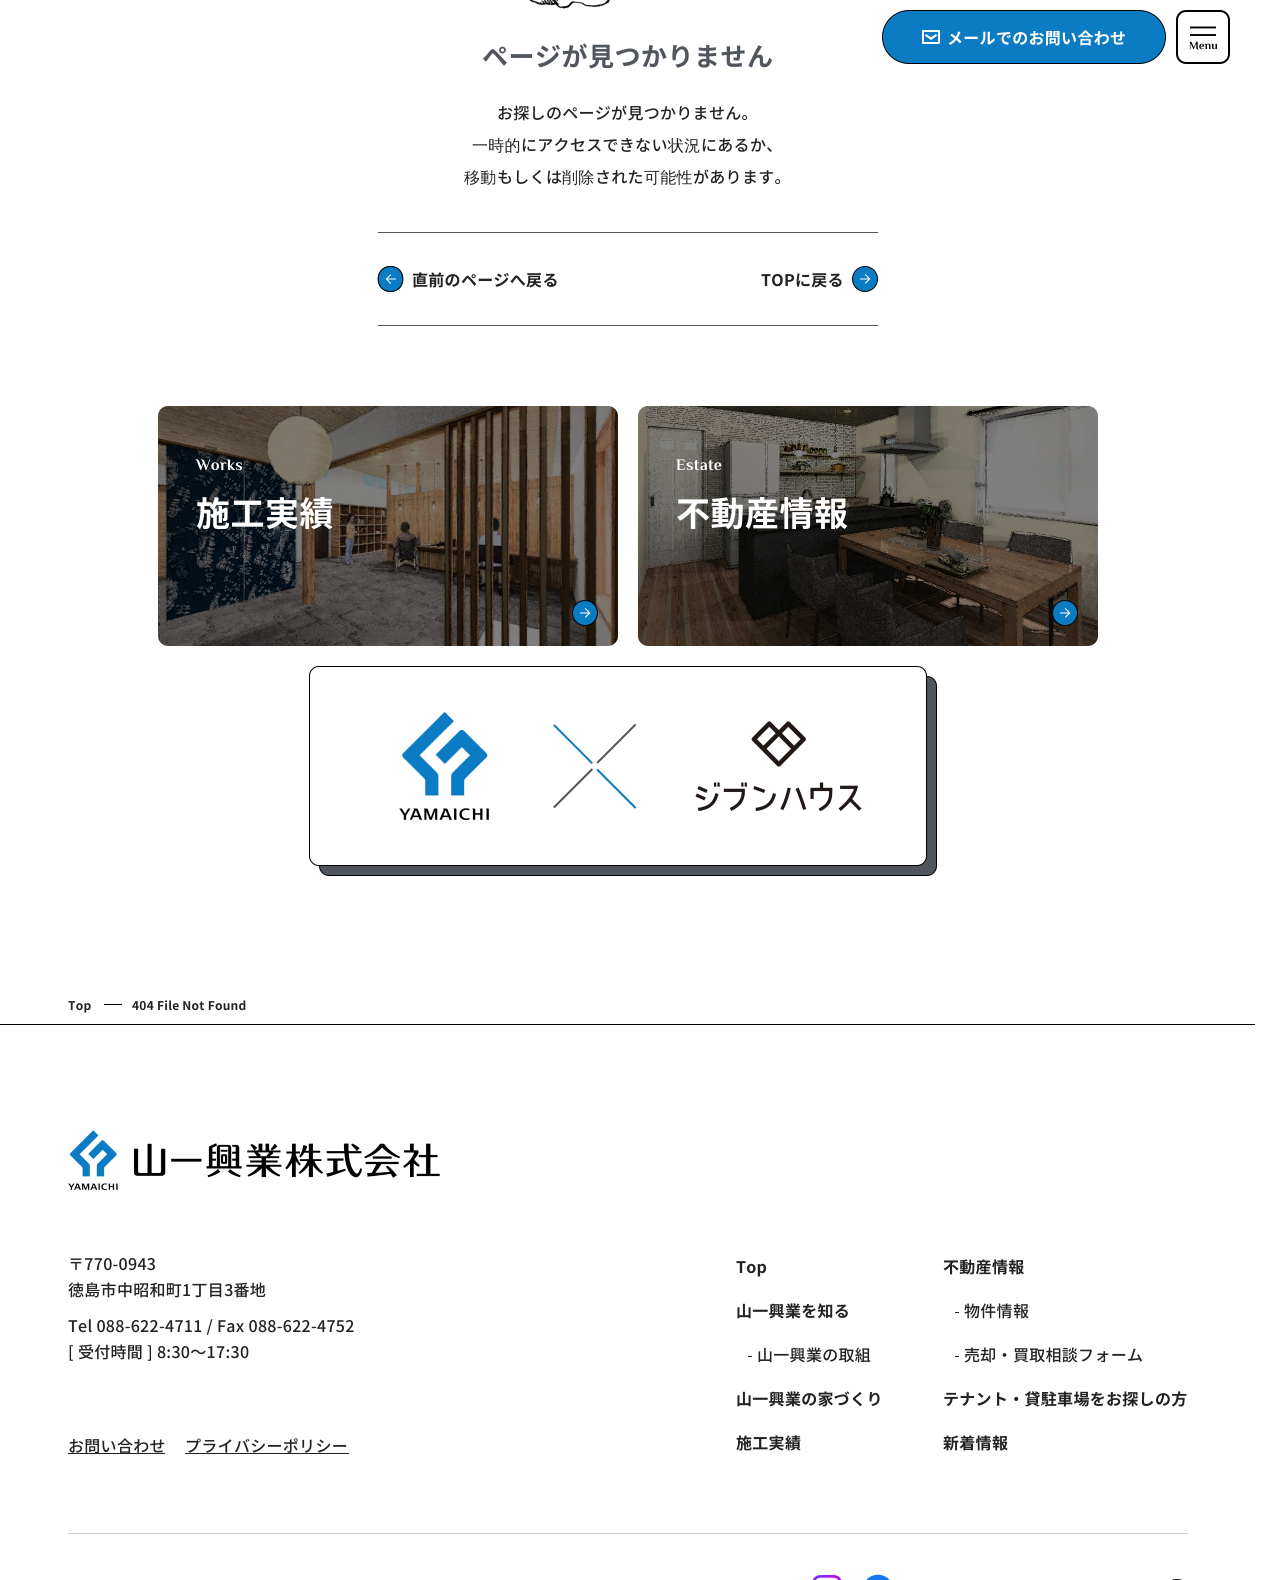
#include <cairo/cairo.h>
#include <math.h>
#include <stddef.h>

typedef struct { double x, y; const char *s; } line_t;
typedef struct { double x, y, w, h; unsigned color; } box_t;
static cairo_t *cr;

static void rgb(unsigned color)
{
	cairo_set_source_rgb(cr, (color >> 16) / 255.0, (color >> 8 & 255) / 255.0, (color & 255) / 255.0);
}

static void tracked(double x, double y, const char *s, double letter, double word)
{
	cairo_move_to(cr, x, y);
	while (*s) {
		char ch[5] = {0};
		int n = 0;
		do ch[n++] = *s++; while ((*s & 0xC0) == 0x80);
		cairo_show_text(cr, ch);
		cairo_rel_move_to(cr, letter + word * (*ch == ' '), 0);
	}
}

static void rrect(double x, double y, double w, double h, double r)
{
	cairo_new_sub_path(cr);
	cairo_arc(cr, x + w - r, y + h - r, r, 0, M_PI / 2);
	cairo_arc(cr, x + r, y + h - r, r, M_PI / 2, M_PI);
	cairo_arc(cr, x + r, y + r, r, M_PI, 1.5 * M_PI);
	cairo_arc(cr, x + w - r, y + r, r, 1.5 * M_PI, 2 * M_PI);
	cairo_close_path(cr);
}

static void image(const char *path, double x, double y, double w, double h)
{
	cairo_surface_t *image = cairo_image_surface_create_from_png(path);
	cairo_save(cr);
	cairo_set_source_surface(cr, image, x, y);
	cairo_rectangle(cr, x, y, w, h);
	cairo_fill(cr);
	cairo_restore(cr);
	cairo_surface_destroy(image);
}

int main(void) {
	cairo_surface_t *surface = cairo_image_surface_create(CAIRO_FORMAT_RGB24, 1270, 1580);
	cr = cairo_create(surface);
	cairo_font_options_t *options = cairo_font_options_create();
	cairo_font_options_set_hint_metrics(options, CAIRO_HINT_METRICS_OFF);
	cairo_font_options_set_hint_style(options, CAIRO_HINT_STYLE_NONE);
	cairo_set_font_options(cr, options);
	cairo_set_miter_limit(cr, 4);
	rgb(0xffffff);
	cairo_paint(cr);
	rgb(0x0b7cc3);
	rrect(882.5, 10.5, 283, 53, 26.5);
	cairo_fill_preserve(cr);
	rgb(0x000000);
	cairo_set_line_width(cr, 1);
	cairo_stroke(cr);
	image("img/1.png", 922, 30, 18, 14);
	rrect(1177, 11, 52, 52, 9);
	cairo_set_line_width(cr, 2);
	cairo_stroke(cr);
	image("img/2.png", 1189, 26, 28, 24);
	image("img/3.png", 529, 0, 82, 9);
	rgb(0x51555d);
	cairo_rectangle(cr, 378, 232, 500, 1);
	cairo_fill(cr);
	cairo_rectangle(cr, 378, 325, 500, 1);
	cairo_fill(cr);
	rgb(0x0b7cc3);
	cairo_new_path(cr);
	cairo_move_to(cr, 390.5, 292);
	cairo_curve_to(cr, 373.5, 292, 373.5, 266, 390.5, 266);
	cairo_curve_to(cr, 407.5, 266, 407.5, 292, 390.5, 292);
	cairo_close_path(cr);
	cairo_fill(cr);
	cairo_new_path(cr);
	cairo_move_to(cr, 390.5, 291.5);
	cairo_curve_to(cr, 374, 291.5, 374, 266.5, 390.5, 266.5);
	cairo_curve_to(cr, 407, 266.5, 407, 291.5, 390.5, 291.5);
	cairo_close_path(cr);
	rgb(0x000000);
	cairo_set_line_width(cr, 1);
	cairo_stroke(cr);
	image("img/4.png", 385, 274, 11, 10);
	rgb(0x0b7cc3);
	cairo_arc(cr, 865, 279, 12.5, 0, 2 * M_PI);
	cairo_fill_preserve(cr);
	rgb(0x000000);
	cairo_stroke(cr);
	image("img/5.png", 860, 274, 11, 10);
	image("img/6.png", 158, 406, 460, 240);
	cairo_set_source_rgba(cr, 0, 0, 0, 0.5);
	rrect(158, 406, 460, 240, 10);
	cairo_fill(cr);
	rgb(0x0b7cc3);
	cairo_arc(cr, 585, 613, 12.5, 0, 2 * M_PI);
	cairo_fill_preserve(cr);
	rgb(0x000000);
	cairo_stroke(cr);
	image("img/7.png", 580, 608, 11, 10);
	image("img/8.png", 638, 406, 460, 240);
	cairo_set_source_rgba(cr, 0, 0, 0, 0.5);
	rrect(638, 406, 460, 240, 10);
	cairo_fill(cr);
	rgb(0x0b7cc3);
	cairo_arc(cr, 1065, 613, 12.5, 0, 2 * M_PI);
	cairo_fill_preserve(cr);
	rgb(0x000000);
	cairo_stroke(cr);
	image("img/7.png", 1060, 608, 11, 10);
	rgb(0x51555d);
	rrect(319.5, 676.5, 617, 199, 9.5);
	cairo_fill_preserve(cr);
	rgb(0x000000);
	cairo_stroke(cr);
	image("img/9.png", 309, 666, 618, 200);
	cairo_rectangle(cr, 104, 1004, 18, 1);
	cairo_fill(cr);
	cairo_rectangle(cr, 0, 1024, 1255, 1);
	cairo_fill(cr);
	image("img/10.png", 68, 1130, 372, 60);
	{
		static const box_t items[] = {
			{748, 1356, 4, 1, 0x222222},
			{955, 1312, 4, 1, 0x222222},
			{955, 1356, 4, 1, 0x222222},
			{68, 1453, 97, 1, 0x222222},
			{185, 1453, 164, 1, 0x222222},
			{68, 1533, 1120, 1, 0xcccccc},
		};
		for (size_t i = 0; i < sizeof items / sizeof *items; i++) {
			rgb(items[i].color);
			cairo_rectangle(cr, items[i].x, items[i].y, items[i].w, items[i].h);
			cairo_fill(cr);
		}
	}
	image("img/11.png", 812, 1575, 30, 5);
	image("img/12.png", 866, 1574, 24, 6);
	image("img/13.png", 1172, 1579, 10, 1);
	cairo_select_font_face(cr, "Noto Sans JP", CAIRO_FONT_SLANT_NORMAL, CAIRO_FONT_WEIGHT_BOLD);
	cairo_set_font_size(cr, 16);
	rgb(0xffffff);
	tracked(947, 44, "メールでのお問い合わせ", 0.3, 0);
	cairo_set_font_size(cr, 26);
	rgb(0x51555d);
	tracked(482, 66, "ページが見つかりません", 0.5, 0);
	cairo_select_font_face(cr, "Noto Sans JP Medium", CAIRO_FONT_SLANT_NORMAL, CAIRO_FONT_WEIGHT_NORMAL);
	cairo_set_font_size(cr, 16);
	rgb(0x222222);
	tracked(497, 119, "お探しのページが見つかりません。", 0.3, 0);
	cairo_select_font_face(cr, "WenQuanYi Zen Hei Medium", CAIRO_FONT_SLANT_NORMAL, CAIRO_FONT_WEIGHT_NORMAL);
	tracked(472, 151, "一時的", 0.3, 0);
	cairo_select_font_face(cr, "Noto Sans JP Medium", CAIRO_FONT_SLANT_NORMAL, CAIRO_FONT_WEIGHT_NORMAL);
	tracked(521, 151, "にアクセスできない", 0.3, 0);
	cairo_select_font_face(cr, "WenQuanYi Zen Hei Medium", CAIRO_FONT_SLANT_NORMAL, CAIRO_FONT_WEIGHT_NORMAL);
	tracked(668, 151, "状況", 0.3, 0);
	cairo_select_font_face(cr, "Noto Sans JP Medium", CAIRO_FONT_SLANT_NORMAL, CAIRO_FONT_WEIGHT_NORMAL);
	tracked(701, 151, "にあるか、", 0.3, 0);
	cairo_select_font_face(cr, "WenQuanYi Zen Hei Medium", CAIRO_FONT_SLANT_NORMAL, CAIRO_FONT_WEIGHT_NORMAL);
	tracked(464, 183, "移動", 0.3, 0);
	cairo_select_font_face(cr, "Noto Sans JP Medium", CAIRO_FONT_SLANT_NORMAL, CAIRO_FONT_WEIGHT_NORMAL);
	tracked(497, 183, "もしくは", 0.3, 0);
	cairo_select_font_face(cr, "WenQuanYi Zen Hei Medium", CAIRO_FONT_SLANT_NORMAL, CAIRO_FONT_WEIGHT_NORMAL);
	tracked(562, 183, "削除", 0.3, 0);
	cairo_select_font_face(cr, "Noto Sans JP Medium", CAIRO_FONT_SLANT_NORMAL, CAIRO_FONT_WEIGHT_NORMAL);
	tracked(595, 183, "された", 0.3, 0);
	cairo_select_font_face(cr, "WenQuanYi Zen Hei Medium", CAIRO_FONT_SLANT_NORMAL, CAIRO_FONT_WEIGHT_NORMAL);
	tracked(644, 183, "可能性", 0.3, 0);
	cairo_select_font_face(cr, "Noto Sans JP Medium", CAIRO_FONT_SLANT_NORMAL, CAIRO_FONT_WEIGHT_NORMAL);
	tracked(693, 183, "があります。", 0.3, 0);
	cairo_select_font_face(cr, "Noto Sans JP", CAIRO_FONT_SLANT_NORMAL, CAIRO_FONT_WEIGHT_BOLD);
	tracked(412, 286, "直前のページへ戻る", 0.3, 0);
	tracked(761, 286, "TOPに戻る", 0.3, 0);
	cairo_select_font_face(cr, "Philosopher", CAIRO_FONT_SLANT_NORMAL, CAIRO_FONT_WEIGHT_BOLD);
	rgb(0xffffff);
	tracked(196, 470, "Works", 0.3, 0);
	cairo_select_font_face(cr, "Noto Sans JP", CAIRO_FONT_SLANT_NORMAL, CAIRO_FONT_WEIGHT_BOLD);
	cairo_set_font_size(cr, 34);
	tracked(196, 526, "施工実績", 0.5, 0);
	cairo_select_font_face(cr, "Philosopher", CAIRO_FONT_SLANT_NORMAL, CAIRO_FONT_WEIGHT_BOLD);
	cairo_set_font_size(cr, 16);
	tracked(676, 470, "Estate", 0.3, 0);
	cairo_select_font_face(cr, "Noto Sans JP", CAIRO_FONT_SLANT_NORMAL, CAIRO_FONT_WEIGHT_BOLD);
	cairo_set_font_size(cr, 34);
	tracked(676, 526, "不動産情報", 0.5, 0);
	cairo_set_font_size(cr, 12);
	rgb(0x222222);
	tracked(68, 1010, "Top", 0.25, 0);
	tracked(132, 1010, "404 File Not Found", 0.25, 0);
	cairo_select_font_face(cr, "Noto Sans JP Medium", CAIRO_FONT_SLANT_NORMAL, CAIRO_FONT_WEIGHT_NORMAL);
	cairo_set_font_size(cr, 16);
	{
		static const line_t items[] = {
			{68, 1270, "〒770-0943"},
			{68, 1296, "徳島市中昭和町1丁目3番地"},
			{68, 1332, "Tel 088-622-4711 / Fax 088-622-4752"},
			{68, 1358, "[ 受付時間 ] 8:30～17:30"},
		};
		for (size_t i = 0; i < sizeof items / sizeof *items; i++) {
			tracked(items[i].x, items[i].y, items[i].s, 0.3, 0);
		}
	}
	cairo_select_font_face(cr, "Noto Sans JP", CAIRO_FONT_SLANT_NORMAL, CAIRO_FONT_WEIGHT_BOLD);
	tracked(736, 1273, "Top", 0.3, 0);
	tracked(736, 1317, "山一興業を知る", 0.3, 0);
	cairo_select_font_face(cr, "Noto Sans JP Medium", CAIRO_FONT_SLANT_NORMAL, CAIRO_FONT_WEIGHT_NORMAL);
	tracked(757, 1361, "山一興業の取組", 0.3, 0);
	cairo_select_font_face(cr, "Noto Sans JP", CAIRO_FONT_SLANT_NORMAL, CAIRO_FONT_WEIGHT_BOLD);
	{
		static const line_t items[] = {
			{736, 1405, "山一興業の家づくり"},
			{736, 1449, "施工実績"},
			{943, 1273, "不動産情報"},
		};
		for (size_t i = 0; i < sizeof items / sizeof *items; i++) {
			tracked(items[i].x, items[i].y, items[i].s, 0.3, 0);
		}
	}
	cairo_select_font_face(cr, "Noto Sans JP Medium", CAIRO_FONT_SLANT_NORMAL, CAIRO_FONT_WEIGHT_NORMAL);
	tracked(964, 1317, "物件情報", 0.3, 0);
	tracked(964, 1361, "売却・買取相談フォーム", 0.3, 0);
	cairo_select_font_face(cr, "Noto Sans JP", CAIRO_FONT_SLANT_NORMAL, CAIRO_FONT_WEIGHT_BOLD);
	tracked(943, 1405, "テナント・貸駐車場をお探しの方", 0.3, 0);
	tracked(943, 1449, "新着情報", 0.3, 0);
	cairo_select_font_face(cr, "Noto Sans JP Medium", CAIRO_FONT_SLANT_NORMAL, CAIRO_FONT_WEIGHT_NORMAL);
	tracked(68, 1452, "お問い合わせ", 0.3, 0);
	tracked(185, 1452, "プライバシーポリシー", 0.3, 0);
	cairo_surface_write_to_png(surface, "page.png");
	cairo_font_options_destroy(options);
	cairo_destroy(cr);
	cairo_surface_destroy(surface);
	return 0;
}
